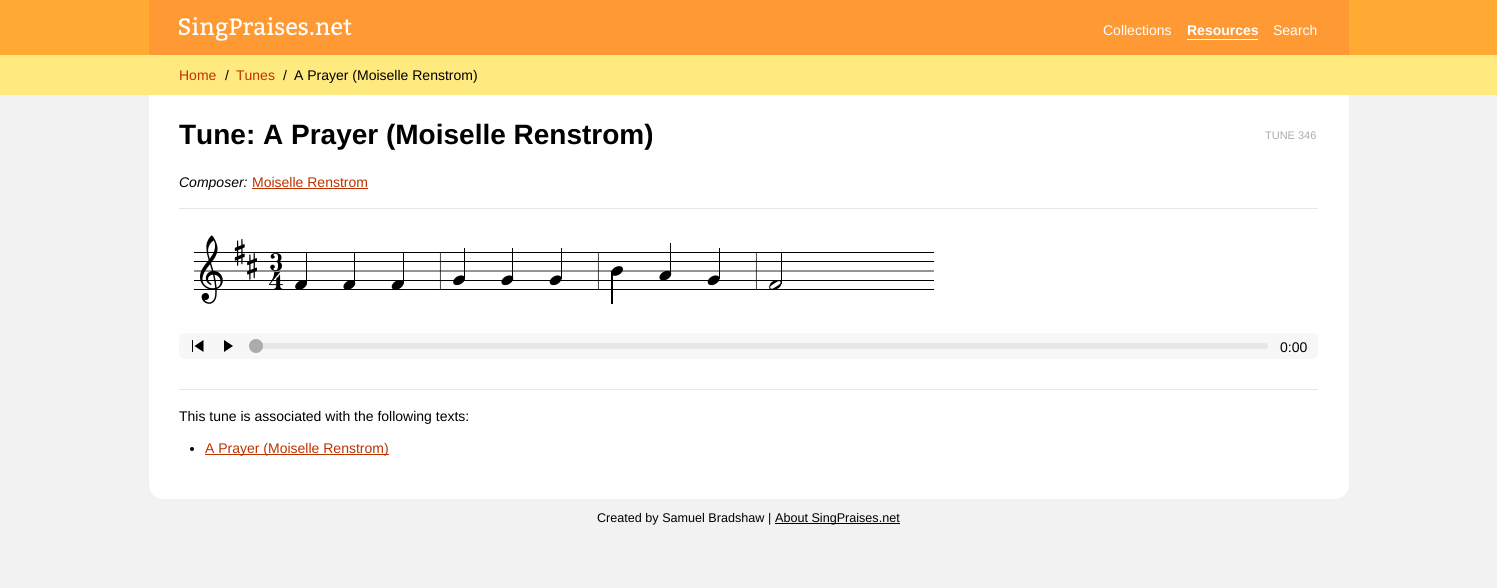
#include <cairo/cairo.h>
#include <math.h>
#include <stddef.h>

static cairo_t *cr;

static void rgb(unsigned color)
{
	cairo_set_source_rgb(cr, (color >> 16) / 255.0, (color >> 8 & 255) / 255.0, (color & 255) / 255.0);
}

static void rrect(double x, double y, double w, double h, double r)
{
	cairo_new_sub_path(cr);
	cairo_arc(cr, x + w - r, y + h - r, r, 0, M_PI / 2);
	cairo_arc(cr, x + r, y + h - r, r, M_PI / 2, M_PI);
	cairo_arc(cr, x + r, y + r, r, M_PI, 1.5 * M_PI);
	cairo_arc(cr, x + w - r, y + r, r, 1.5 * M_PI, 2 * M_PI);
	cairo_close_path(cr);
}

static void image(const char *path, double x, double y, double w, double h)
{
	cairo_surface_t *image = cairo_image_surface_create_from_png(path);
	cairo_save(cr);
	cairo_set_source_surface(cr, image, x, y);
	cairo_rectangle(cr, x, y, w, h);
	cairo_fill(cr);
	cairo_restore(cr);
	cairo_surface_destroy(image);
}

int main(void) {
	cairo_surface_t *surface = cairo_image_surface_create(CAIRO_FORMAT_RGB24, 1497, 588);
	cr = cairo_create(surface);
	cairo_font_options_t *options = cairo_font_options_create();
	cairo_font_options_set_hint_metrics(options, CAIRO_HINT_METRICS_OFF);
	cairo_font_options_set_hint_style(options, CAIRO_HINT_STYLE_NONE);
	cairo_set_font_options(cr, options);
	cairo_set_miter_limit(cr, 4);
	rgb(0xf2f2f2);
	cairo_paint(cr);
	rgb(0xffaa33);
	cairo_rectangle(cr, 0, 0, 1497, 55);
	cairo_fill(cr);
	rgb(0xff9933);
	cairo_rectangle(cr, 149, 0, 1200, 55);
	cairo_fill(cr);
	image("img/1.png", 179, 17, 173, 24);
	rgb(0xffffff);
	cairo_rectangle(cr, 1187, 39, 71, 1);
	cairo_fill(cr);
	rgb(0xffea80);
	cairo_rectangle(cr, 0, 55, 1497, 40);
	cairo_fill(cr);
	rgb(0xffffff);
	cairo_new_path(cr);
	cairo_move_to(cr, 149, 95);
	cairo_line_to(cr, 1349, 95);
	cairo_line_to(cr, 1349, 485);
	cairo_curve_to(cr, 1349, 492.5, 1342.5, 499, 1335, 499);
	cairo_line_to(cr, 163, 499);
	cairo_curve_to(cr, 155.5, 499, 149, 492.5, 149, 485);
	cairo_close_path(cr);
	cairo_fill(cr);
	rgb(0xbd3200);
	cairo_rectangle(cr, 252, 188, 116, 1);
	cairo_fill(cr);
	rgb(0xe6e6e6);
	cairo_rectangle(cr, 179, 208, 1139, 1);
	cairo_fill(cr);
	image("img/2.png", 193, 235, 741, 69);
	rgb(0xf7f7f7);
	rrect(179, 333, 1139, 26, 5);
	cairo_fill(cr);
	image("img/3.png", 192, 340, 12, 12);
	rgb(0x000000);
	cairo_new_path(cr);
	cairo_move_to(cr, 224, 340);
	cairo_line_to(cr, 233, 346);
	cairo_line_to(cr, 224, 352);
	cairo_close_path(cr);
	cairo_fill(cr);
	rgb(0xe6e6e6);
	rrect(256, 343, 1012, 6, 3);
	cairo_fill(cr);
	rgb(0xababab);
	cairo_arc(cr, 256, 346, 7, 0, 2 * M_PI);
	cairo_fill(cr);
	rgb(0xe6e6e6);
	cairo_rectangle(cr, 179, 389, 1139, 1);
	cairo_fill(cr);
	rgb(0x000000);
	cairo_arc(cr, 192, 449, 2, 0, 2 * M_PI);
	cairo_fill(cr);
	rgb(0xbd3200);
	cairo_rectangle(cr, 205, 454, 184, 1);
	cairo_fill(cr);
	rgb(0x000000);
	cairo_rectangle(cr, 775, 523, 125, 1);
	cairo_fill(cr);
	cairo_select_font_face(cr, "Liberation Sans", CAIRO_FONT_SLANT_NORMAL, CAIRO_FONT_WEIGHT_NORMAL);
	cairo_set_font_size(cr, 14);
	rgb(0xffffff);
	cairo_move_to(cr, 1103, 35);
	cairo_show_text(cr, "Collections");
	cairo_select_font_face(cr, "Liberation Sans", CAIRO_FONT_SLANT_NORMAL, CAIRO_FONT_WEIGHT_BOLD);
	cairo_move_to(cr, 1187, 35);
	cairo_show_text(cr, "Resources");
	cairo_select_font_face(cr, "Liberation Sans", CAIRO_FONT_SLANT_NORMAL, CAIRO_FONT_WEIGHT_NORMAL);
	cairo_move_to(cr, 1273, 35);
	cairo_show_text(cr, "Search");
	rgb(0xbd3200);
	cairo_move_to(cr, 179, 80);
	cairo_show_text(cr, "Home");
	rgb(0x000000);
	cairo_move_to(cr, 225, 80);
	cairo_show_text(cr, "/");
	rgb(0xbd3200);
	cairo_move_to(cr, 236, 80);
	cairo_show_text(cr, "Tunes");
	rgb(0x000000);
	cairo_move_to(cr, 283, 80);
	cairo_show_text(cr, "/");
	cairo_move_to(cr, 294, 80);
	cairo_show_text(cr, "A Prayer (Moiselle Renstrom)");
	cairo_select_font_face(cr, "Liberation Sans", CAIRO_FONT_SLANT_NORMAL, CAIRO_FONT_WEIGHT_BOLD);
	cairo_set_font_size(cr, 28);
	cairo_move_to(cr, 179, 144);
	cairo_show_text(cr, "Tune: A Prayer (Moiselle Renstrom)");
	cairo_select_font_face(cr, "Liberation Sans", CAIRO_FONT_SLANT_NORMAL, CAIRO_FONT_WEIGHT_NORMAL);
	cairo_set_font_size(cr, 11);
	rgb(0xababab);
	cairo_move_to(cr, 1265, 139);
	cairo_show_text(cr, "TUNE 346");
	cairo_select_font_face(cr, "Liberation Sans", CAIRO_FONT_SLANT_ITALIC, CAIRO_FONT_WEIGHT_NORMAL);
	cairo_set_font_size(cr, 14);
	rgb(0x000000);
	cairo_move_to(cr, 179, 187);
	cairo_show_text(cr, "Composer:");
	cairo_select_font_face(cr, "Liberation Sans", CAIRO_FONT_SLANT_NORMAL, CAIRO_FONT_WEIGHT_NORMAL);
	rgb(0xbd3200);
	cairo_move_to(cr, 252, 187);
	cairo_show_text(cr, "Moiselle Renstrom");
	rgb(0x000000);
	cairo_move_to(cr, 1280, 352);
	cairo_show_text(cr, "0:00");
	cairo_move_to(cr, 179, 421);
	cairo_show_text(cr, "This tune is associated with the following texts:");
	rgb(0xbd3200);
	cairo_move_to(cr, 205, 453);
	cairo_show_text(cr, "A Prayer (Moiselle Renstrom)");
	cairo_set_font_size(cr, 12.6);
	rgb(0x000000);
	cairo_move_to(cr, 597, 522);
	cairo_show_text(cr, "Created by Samuel Bradshaw |");
	cairo_move_to(cr, 775, 522);
	cairo_show_text(cr, "About SingPraises.net");
	cairo_surface_write_to_png(surface, "page.png");
	cairo_font_options_destroy(options);
	cairo_destroy(cr);
	cairo_surface_destroy(surface);
	return 0;
}
